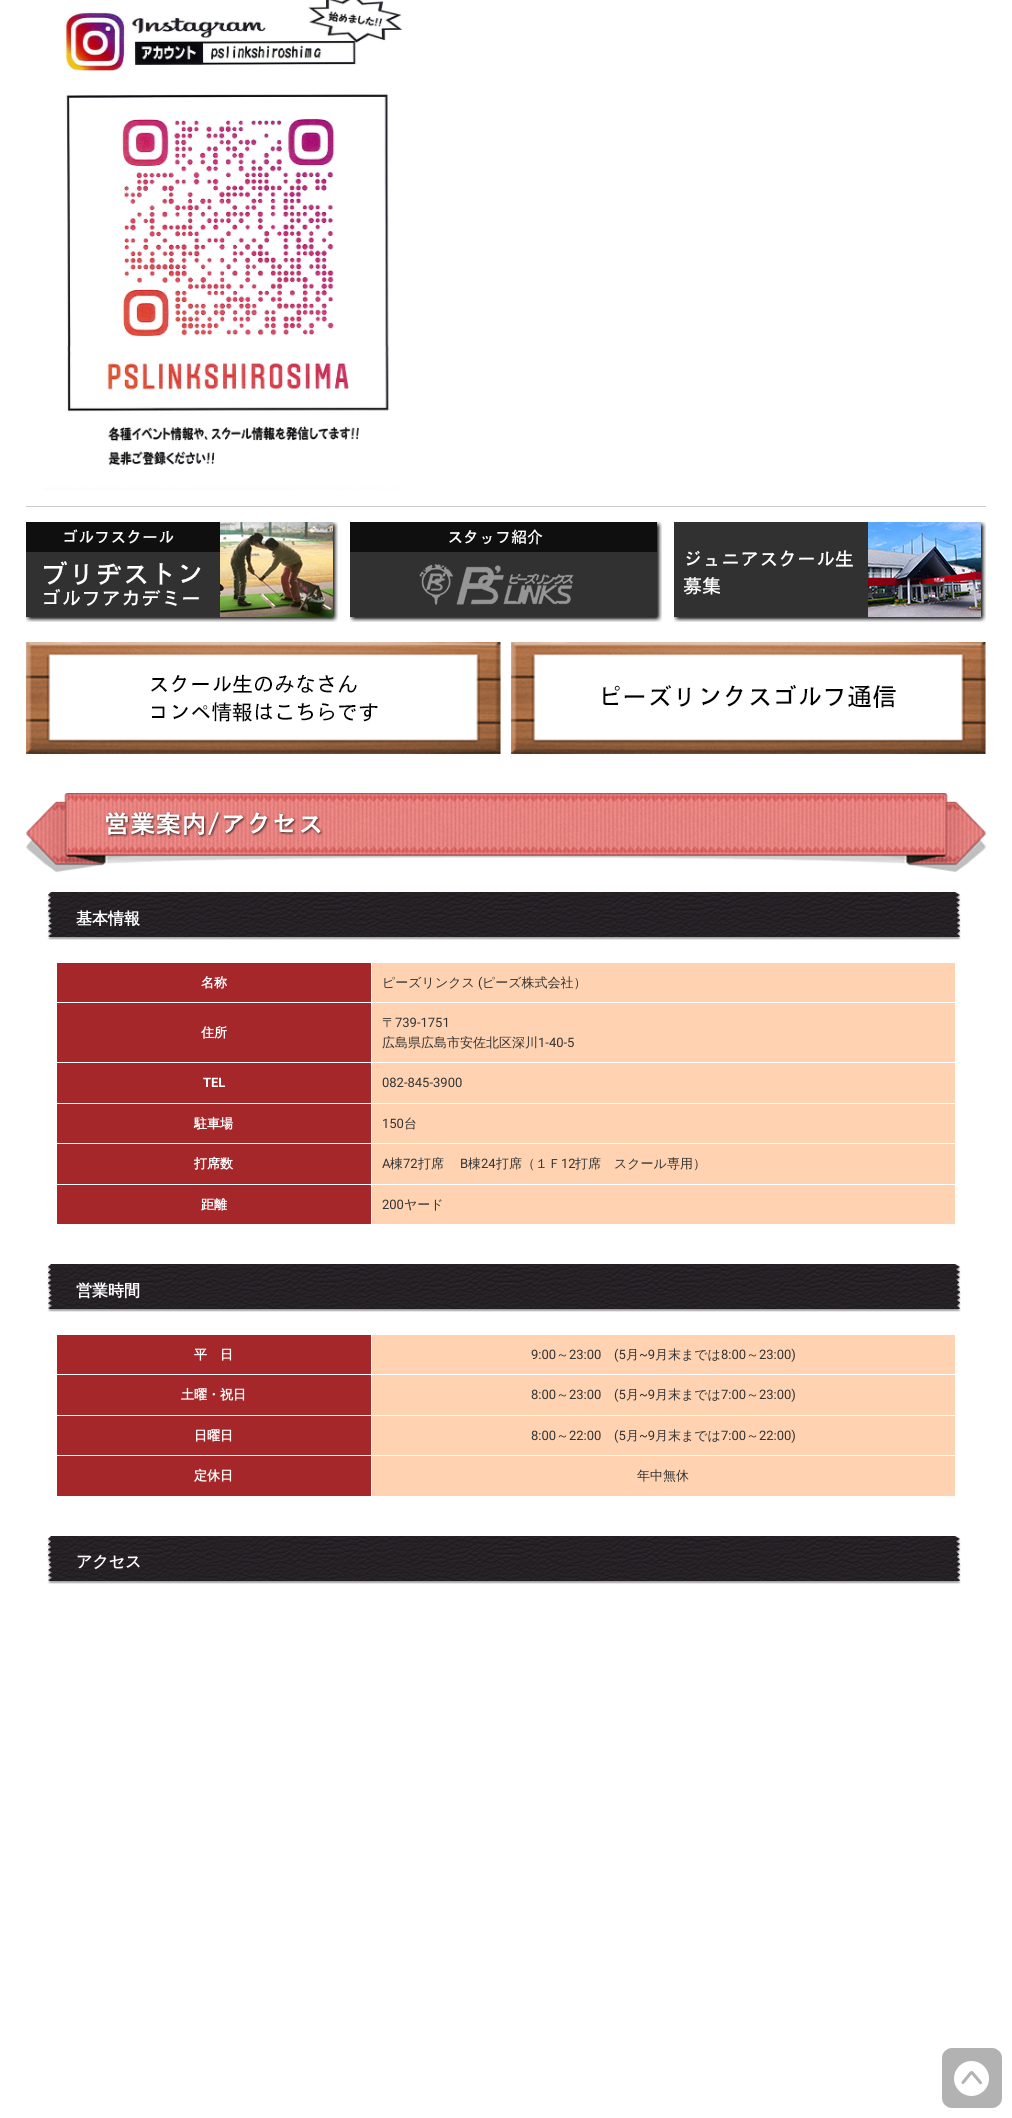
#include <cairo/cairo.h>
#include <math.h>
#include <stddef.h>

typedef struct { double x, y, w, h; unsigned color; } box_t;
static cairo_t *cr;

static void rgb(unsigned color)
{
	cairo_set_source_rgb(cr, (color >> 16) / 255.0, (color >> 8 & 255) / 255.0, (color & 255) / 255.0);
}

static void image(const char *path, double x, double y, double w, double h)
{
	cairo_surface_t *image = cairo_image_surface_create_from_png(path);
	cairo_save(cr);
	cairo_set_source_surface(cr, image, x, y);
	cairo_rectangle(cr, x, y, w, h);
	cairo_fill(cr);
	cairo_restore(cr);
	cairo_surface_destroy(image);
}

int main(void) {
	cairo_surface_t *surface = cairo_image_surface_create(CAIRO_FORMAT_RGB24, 1012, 2118);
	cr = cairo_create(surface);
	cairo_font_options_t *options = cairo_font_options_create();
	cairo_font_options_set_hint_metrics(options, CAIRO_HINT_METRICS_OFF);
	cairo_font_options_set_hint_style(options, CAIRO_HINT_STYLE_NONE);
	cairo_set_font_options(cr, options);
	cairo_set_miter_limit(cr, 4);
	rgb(0xffffff);
	cairo_paint(cr);
	rgb(0xcccccc);
	cairo_rectangle(cr, 26, 506, 960, 1);
	cairo_fill(cr);
	image("img/1.png", 43, 0, 360, 490);
	image("img/2.png", 26, 522, 312, 100);
	image("img/3.png", 350, 522, 312, 100);
	image("img/4.png", 674, 522, 312, 100);
	image("img/5.png", 26, 642, 475, 112);
	image("img/6.png", 511, 642, 475, 112);
	image("img/7.png", 26, 793, 960, 80);
	image("img/8.png", 47, 892, 914, 48);
	{
		static const box_t items[] = {
			{57, 963, 314, 39, 0xa5272a},
			{372, 963, 583, 39, 0xffd3b1},
			{57, 1003, 314, 59, 0xa5272a},
			{372, 1003, 583, 59, 0xffd3b1},
			{57, 1063, 314, 40, 0xa5272a},
			{372, 1063, 583, 40, 0xffd3b1},
			{57, 1104, 314, 39, 0xa5272a},
			{372, 1104, 583, 39, 0xffd3b1},
			{57, 1144, 314, 40, 0xa5272a},
			{372, 1144, 583, 40, 0xffd3b1},
			{57, 1185, 314, 39, 0xa5272a},
			{372, 1185, 583, 39, 0xffd3b1},
		};
		for (size_t i = 0; i < sizeof items / sizeof *items; i++) {
			rgb(items[i].color);
			cairo_rectangle(cr, items[i].x, items[i].y, items[i].w, items[i].h);
			cairo_fill(cr);
		}
	}
	image("img/8.png", 47, 1264, 914, 48);
	{
		static const box_t items[] = {
			{57, 1335, 314, 39, 0xa5272a},
			{372, 1335, 583, 39, 0xffd3b1},
			{57, 1375, 314, 40, 0xa5272a},
			{372, 1375, 583, 40, 0xffd3b1},
			{57, 1416, 314, 39, 0xa5272a},
			{372, 1416, 583, 39, 0xffd3b1},
			{57, 1456, 314, 40, 0xa5272a},
			{372, 1456, 583, 40, 0xffd3b1},
		};
		for (size_t i = 0; i < sizeof items / sizeof *items; i++) {
			rgb(items[i].color);
			cairo_rectangle(cr, items[i].x, items[i].y, items[i].w, items[i].h);
			cairo_fill(cr);
		}
	}
	image("img/8.png", 47, 1536, 914, 48);
	image("img/9.png", 942, 2048, 60, 60);
	cairo_select_font_face(cr, "WenQuanYi Zen Hei", CAIRO_FONT_SLANT_NORMAL, CAIRO_FONT_WEIGHT_BOLD);
	cairo_set_font_size(cr, 16);
	rgb(0xffffff);
	cairo_move_to(cr, 76, 924);
	cairo_show_text(cr, "基本情報");
	cairo_set_font_size(cr, 13);
	cairo_move_to(cr, 201, 987);
	cairo_show_text(cr, "名称");
	cairo_select_font_face(cr, "WenQuanYi Zen Hei Medium", CAIRO_FONT_SLANT_NORMAL, CAIRO_FONT_WEIGHT_NORMAL);
	rgb(0x333333);
	cairo_move_to(cr, 382, 987);
	cairo_show_text(cr, "ピーズリンクス");
	cairo_select_font_face(cr, "Roboto", CAIRO_FONT_SLANT_NORMAL, CAIRO_FONT_WEIGHT_NORMAL);
	cairo_move_to(cr, 478, 987);
	cairo_show_text(cr, "(");
	cairo_select_font_face(cr, "WenQuanYi Zen Hei Medium", CAIRO_FONT_SLANT_NORMAL, CAIRO_FONT_WEIGHT_NORMAL);
	cairo_move_to(cr, 482, 987);
	cairo_show_text(cr, "ピーズ株式会社）");
	cairo_select_font_face(cr, "WenQuanYi Zen Hei", CAIRO_FONT_SLANT_NORMAL, CAIRO_FONT_WEIGHT_BOLD);
	rgb(0xffffff);
	cairo_move_to(cr, 201, 1037);
	cairo_show_text(cr, "住所");
	cairo_select_font_face(cr, "WenQuanYi Zen Hei Medium", CAIRO_FONT_SLANT_NORMAL, CAIRO_FONT_WEIGHT_NORMAL);
	rgb(0x333333);
	cairo_move_to(cr, 382, 1027);
	cairo_show_text(cr, "〒");
	cairo_select_font_face(cr, "Roboto", CAIRO_FONT_SLANT_NORMAL, CAIRO_FONT_WEIGHT_NORMAL);
	cairo_move_to(cr, 395, 1027);
	cairo_show_text(cr, "739-1751");
	cairo_select_font_face(cr, "WenQuanYi Zen Hei Medium", CAIRO_FONT_SLANT_NORMAL, CAIRO_FONT_WEIGHT_NORMAL);
	cairo_move_to(cr, 382, 1047);
	cairo_show_text(cr, "広島県広島市安佐北区深川");
	cairo_select_font_face(cr, "Roboto", CAIRO_FONT_SLANT_NORMAL, CAIRO_FONT_WEIGHT_NORMAL);
	cairo_move_to(cr, 538, 1047);
	cairo_show_text(cr, "1-40-5");
	cairo_select_font_face(cr, "Roboto", CAIRO_FONT_SLANT_NORMAL, CAIRO_FONT_WEIGHT_BOLD);
	rgb(0xffffff);
	cairo_move_to(cr, 203, 1087);
	cairo_show_text(cr, "TEL");
	cairo_select_font_face(cr, "Roboto", CAIRO_FONT_SLANT_NORMAL, CAIRO_FONT_WEIGHT_NORMAL);
	rgb(0x333333);
	cairo_move_to(cr, 382, 1087);
	cairo_show_text(cr, "082-845-3900");
	cairo_select_font_face(cr, "WenQuanYi Zen Hei", CAIRO_FONT_SLANT_NORMAL, CAIRO_FONT_WEIGHT_BOLD);
	rgb(0xffffff);
	cairo_move_to(cr, 194, 1128);
	cairo_show_text(cr, "駐車場");
	cairo_select_font_face(cr, "Roboto", CAIRO_FONT_SLANT_NORMAL, CAIRO_FONT_WEIGHT_NORMAL);
	rgb(0x333333);
	cairo_move_to(cr, 382, 1128);
	cairo_show_text(cr, "150");
	cairo_select_font_face(cr, "WenQuanYi Zen Hei Medium", CAIRO_FONT_SLANT_NORMAL, CAIRO_FONT_WEIGHT_NORMAL);
	cairo_move_to(cr, 404, 1128);
	cairo_show_text(cr, "台");
	cairo_select_font_face(cr, "WenQuanYi Zen Hei", CAIRO_FONT_SLANT_NORMAL, CAIRO_FONT_WEIGHT_BOLD);
	rgb(0xffffff);
	cairo_move_to(cr, 194, 1168);
	cairo_show_text(cr, "打席数");
	cairo_select_font_face(cr, "Roboto", CAIRO_FONT_SLANT_NORMAL, CAIRO_FONT_WEIGHT_NORMAL);
	rgb(0x333333);
	cairo_move_to(cr, 382, 1168);
	cairo_show_text(cr, "A");
	cairo_select_font_face(cr, "WenQuanYi Zen Hei Medium", CAIRO_FONT_SLANT_NORMAL, CAIRO_FONT_WEIGHT_NORMAL);
	cairo_move_to(cr, 390, 1168);
	cairo_show_text(cr, "棟");
	cairo_select_font_face(cr, "Roboto", CAIRO_FONT_SLANT_NORMAL, CAIRO_FONT_WEIGHT_NORMAL);
	cairo_move_to(cr, 403, 1168);
	cairo_show_text(cr, "72");
	cairo_select_font_face(cr, "WenQuanYi Zen Hei Medium", CAIRO_FONT_SLANT_NORMAL, CAIRO_FONT_WEIGHT_NORMAL);
	cairo_move_to(cr, 418, 1168);
	cairo_show_text(cr, "打席");
	cairo_select_font_face(cr, "Roboto", CAIRO_FONT_SLANT_NORMAL, CAIRO_FONT_WEIGHT_NORMAL);
	cairo_move_to(cr, 460, 1168);
	cairo_show_text(cr, "B");
	cairo_select_font_face(cr, "WenQuanYi Zen Hei Medium", CAIRO_FONT_SLANT_NORMAL, CAIRO_FONT_WEIGHT_NORMAL);
	cairo_move_to(cr, 468, 1168);
	cairo_show_text(cr, "棟");
	cairo_select_font_face(cr, "Roboto", CAIRO_FONT_SLANT_NORMAL, CAIRO_FONT_WEIGHT_NORMAL);
	cairo_move_to(cr, 481, 1168);
	cairo_show_text(cr, "24");
	cairo_select_font_face(cr, "WenQuanYi Zen Hei Medium", CAIRO_FONT_SLANT_NORMAL, CAIRO_FONT_WEIGHT_NORMAL);
	cairo_move_to(cr, 496, 1168);
	cairo_show_text(cr, "打席（１Ｆ");
	cairo_select_font_face(cr, "Roboto", CAIRO_FONT_SLANT_NORMAL, CAIRO_FONT_WEIGHT_NORMAL);
	cairo_move_to(cr, 561, 1168);
	cairo_show_text(cr, "12");
	cairo_select_font_face(cr, "WenQuanYi Zen Hei Medium", CAIRO_FONT_SLANT_NORMAL, CAIRO_FONT_WEIGHT_NORMAL);
	cairo_move_to(cr, 575, 1168);
	cairo_show_text(cr, "打席　スクール専用）");
	cairo_select_font_face(cr, "WenQuanYi Zen Hei", CAIRO_FONT_SLANT_NORMAL, CAIRO_FONT_WEIGHT_BOLD);
	rgb(0xffffff);
	cairo_move_to(cr, 201, 1209);
	cairo_show_text(cr, "距離");
	cairo_select_font_face(cr, "Roboto", CAIRO_FONT_SLANT_NORMAL, CAIRO_FONT_WEIGHT_NORMAL);
	rgb(0x333333);
	cairo_move_to(cr, 382, 1209);
	cairo_show_text(cr, "200");
	cairo_select_font_face(cr, "WenQuanYi Zen Hei Medium", CAIRO_FONT_SLANT_NORMAL, CAIRO_FONT_WEIGHT_NORMAL);
	cairo_move_to(cr, 404, 1209);
	cairo_show_text(cr, "ヤード");
	cairo_select_font_face(cr, "WenQuanYi Zen Hei", CAIRO_FONT_SLANT_NORMAL, CAIRO_FONT_WEIGHT_BOLD);
	cairo_set_font_size(cr, 16);
	rgb(0xffffff);
	cairo_move_to(cr, 76, 1296);
	cairo_show_text(cr, "営業時間");
	cairo_set_font_size(cr, 13);
	cairo_move_to(cr, 194, 1359);
	cairo_show_text(cr, "平　日");
	cairo_select_font_face(cr, "Roboto", CAIRO_FONT_SLANT_NORMAL, CAIRO_FONT_WEIGHT_NORMAL);
	rgb(0x333333);
	cairo_move_to(cr, 531, 1359);
	cairo_show_text(cr, "9:00");
	cairo_select_font_face(cr, "WenQuanYi Zen Hei Medium", CAIRO_FONT_SLANT_NORMAL, CAIRO_FONT_WEIGHT_NORMAL);
	cairo_move_to(cr, 556, 1359);
	cairo_show_text(cr, "～");
	cairo_select_font_face(cr, "Roboto", CAIRO_FONT_SLANT_NORMAL, CAIRO_FONT_WEIGHT_NORMAL);
	cairo_move_to(cr, 569, 1359);
	cairo_show_text(cr, "23:00");
	cairo_move_to(cr, 614, 1359);
	cairo_show_text(cr, "(5");
	cairo_select_font_face(cr, "WenQuanYi Zen Hei Medium", CAIRO_FONT_SLANT_NORMAL, CAIRO_FONT_WEIGHT_NORMAL);
	cairo_move_to(cr, 626, 1359);
	cairo_show_text(cr, "月");
	cairo_select_font_face(cr, "Roboto", CAIRO_FONT_SLANT_NORMAL, CAIRO_FONT_WEIGHT_NORMAL);
	cairo_move_to(cr, 639, 1359);
	cairo_show_text(cr, "~9");
	cairo_select_font_face(cr, "WenQuanYi Zen Hei Medium", CAIRO_FONT_SLANT_NORMAL, CAIRO_FONT_WEIGHT_NORMAL);
	cairo_move_to(cr, 655, 1359);
	cairo_show_text(cr, "月末までは");
	cairo_select_font_face(cr, "Roboto", CAIRO_FONT_SLANT_NORMAL, CAIRO_FONT_WEIGHT_NORMAL);
	cairo_move_to(cr, 721, 1359);
	cairo_show_text(cr, "8:00");
	cairo_select_font_face(cr, "WenQuanYi Zen Hei Medium", CAIRO_FONT_SLANT_NORMAL, CAIRO_FONT_WEIGHT_NORMAL);
	cairo_move_to(cr, 746, 1359);
	cairo_show_text(cr, "～");
	cairo_select_font_face(cr, "Roboto", CAIRO_FONT_SLANT_NORMAL, CAIRO_FONT_WEIGHT_NORMAL);
	cairo_move_to(cr, 759, 1359);
	cairo_show_text(cr, "23:00)");
	cairo_select_font_face(cr, "WenQuanYi Zen Hei", CAIRO_FONT_SLANT_NORMAL, CAIRO_FONT_WEIGHT_BOLD);
	rgb(0xffffff);
	cairo_move_to(cr, 181, 1399);
	cairo_show_text(cr, "土曜・祝日");
	cairo_select_font_face(cr, "Roboto", CAIRO_FONT_SLANT_NORMAL, CAIRO_FONT_WEIGHT_NORMAL);
	rgb(0x333333);
	cairo_move_to(cr, 531, 1399);
	cairo_show_text(cr, "8:00");
	cairo_select_font_face(cr, "WenQuanYi Zen Hei Medium", CAIRO_FONT_SLANT_NORMAL, CAIRO_FONT_WEIGHT_NORMAL);
	cairo_move_to(cr, 556, 1399);
	cairo_show_text(cr, "～");
	cairo_select_font_face(cr, "Roboto", CAIRO_FONT_SLANT_NORMAL, CAIRO_FONT_WEIGHT_NORMAL);
	cairo_move_to(cr, 569, 1399);
	cairo_show_text(cr, "23:00");
	cairo_move_to(cr, 614, 1399);
	cairo_show_text(cr, "(5");
	cairo_select_font_face(cr, "WenQuanYi Zen Hei Medium", CAIRO_FONT_SLANT_NORMAL, CAIRO_FONT_WEIGHT_NORMAL);
	cairo_move_to(cr, 626, 1399);
	cairo_show_text(cr, "月");
	cairo_select_font_face(cr, "Roboto", CAIRO_FONT_SLANT_NORMAL, CAIRO_FONT_WEIGHT_NORMAL);
	cairo_move_to(cr, 639, 1399);
	cairo_show_text(cr, "~9");
	cairo_select_font_face(cr, "WenQuanYi Zen Hei Medium", CAIRO_FONT_SLANT_NORMAL, CAIRO_FONT_WEIGHT_NORMAL);
	cairo_move_to(cr, 655, 1399);
	cairo_show_text(cr, "月末までは");
	cairo_select_font_face(cr, "Roboto", CAIRO_FONT_SLANT_NORMAL, CAIRO_FONT_WEIGHT_NORMAL);
	cairo_move_to(cr, 721, 1399);
	cairo_show_text(cr, "7:00");
	cairo_select_font_face(cr, "WenQuanYi Zen Hei Medium", CAIRO_FONT_SLANT_NORMAL, CAIRO_FONT_WEIGHT_NORMAL);
	cairo_move_to(cr, 746, 1399);
	cairo_show_text(cr, "～");
	cairo_select_font_face(cr, "Roboto", CAIRO_FONT_SLANT_NORMAL, CAIRO_FONT_WEIGHT_NORMAL);
	cairo_move_to(cr, 759, 1399);
	cairo_show_text(cr, "23:00)");
	cairo_select_font_face(cr, "WenQuanYi Zen Hei", CAIRO_FONT_SLANT_NORMAL, CAIRO_FONT_WEIGHT_BOLD);
	rgb(0xffffff);
	cairo_move_to(cr, 194, 1440);
	cairo_show_text(cr, "日曜日");
	cairo_select_font_face(cr, "Roboto", CAIRO_FONT_SLANT_NORMAL, CAIRO_FONT_WEIGHT_NORMAL);
	rgb(0x333333);
	cairo_move_to(cr, 531, 1440);
	cairo_show_text(cr, "8:00");
	cairo_select_font_face(cr, "WenQuanYi Zen Hei Medium", CAIRO_FONT_SLANT_NORMAL, CAIRO_FONT_WEIGHT_NORMAL);
	cairo_move_to(cr, 556, 1440);
	cairo_show_text(cr, "～");
	cairo_select_font_face(cr, "Roboto", CAIRO_FONT_SLANT_NORMAL, CAIRO_FONT_WEIGHT_NORMAL);
	cairo_move_to(cr, 569, 1440);
	cairo_show_text(cr, "22:00");
	cairo_move_to(cr, 614, 1440);
	cairo_show_text(cr, "(5");
	cairo_select_font_face(cr, "WenQuanYi Zen Hei Medium", CAIRO_FONT_SLANT_NORMAL, CAIRO_FONT_WEIGHT_NORMAL);
	cairo_move_to(cr, 626, 1440);
	cairo_show_text(cr, "月");
	cairo_select_font_face(cr, "Roboto", CAIRO_FONT_SLANT_NORMAL, CAIRO_FONT_WEIGHT_NORMAL);
	cairo_move_to(cr, 639, 1440);
	cairo_show_text(cr, "~9");
	cairo_select_font_face(cr, "WenQuanYi Zen Hei Medium", CAIRO_FONT_SLANT_NORMAL, CAIRO_FONT_WEIGHT_NORMAL);
	cairo_move_to(cr, 655, 1440);
	cairo_show_text(cr, "月末までは");
	cairo_select_font_face(cr, "Roboto", CAIRO_FONT_SLANT_NORMAL, CAIRO_FONT_WEIGHT_NORMAL);
	cairo_move_to(cr, 721, 1440);
	cairo_show_text(cr, "7:00");
	cairo_select_font_face(cr, "WenQuanYi Zen Hei Medium", CAIRO_FONT_SLANT_NORMAL, CAIRO_FONT_WEIGHT_NORMAL);
	cairo_move_to(cr, 746, 1440);
	cairo_show_text(cr, "～");
	cairo_select_font_face(cr, "Roboto", CAIRO_FONT_SLANT_NORMAL, CAIRO_FONT_WEIGHT_NORMAL);
	cairo_move_to(cr, 759, 1440);
	cairo_show_text(cr, "22:00)");
	cairo_select_font_face(cr, "WenQuanYi Zen Hei", CAIRO_FONT_SLANT_NORMAL, CAIRO_FONT_WEIGHT_BOLD);
	rgb(0xffffff);
	cairo_move_to(cr, 194, 1480);
	cairo_show_text(cr, "定休日");
	cairo_select_font_face(cr, "WenQuanYi Zen Hei Medium", CAIRO_FONT_SLANT_NORMAL, CAIRO_FONT_WEIGHT_NORMAL);
	rgb(0x333333);
	cairo_move_to(cr, 637, 1480);
	cairo_show_text(cr, "年中無休");
	cairo_select_font_face(cr, "WenQuanYi Zen Hei", CAIRO_FONT_SLANT_NORMAL, CAIRO_FONT_WEIGHT_BOLD);
	cairo_set_font_size(cr, 16);
	rgb(0xffffff);
	cairo_move_to(cr, 76, 1567);
	cairo_show_text(cr, "アクセス");
	cairo_surface_write_to_png(surface, "page.png");
	cairo_font_options_destroy(options);
	cairo_destroy(cr);
	cairo_surface_destroy(surface);
	return 0;
}
